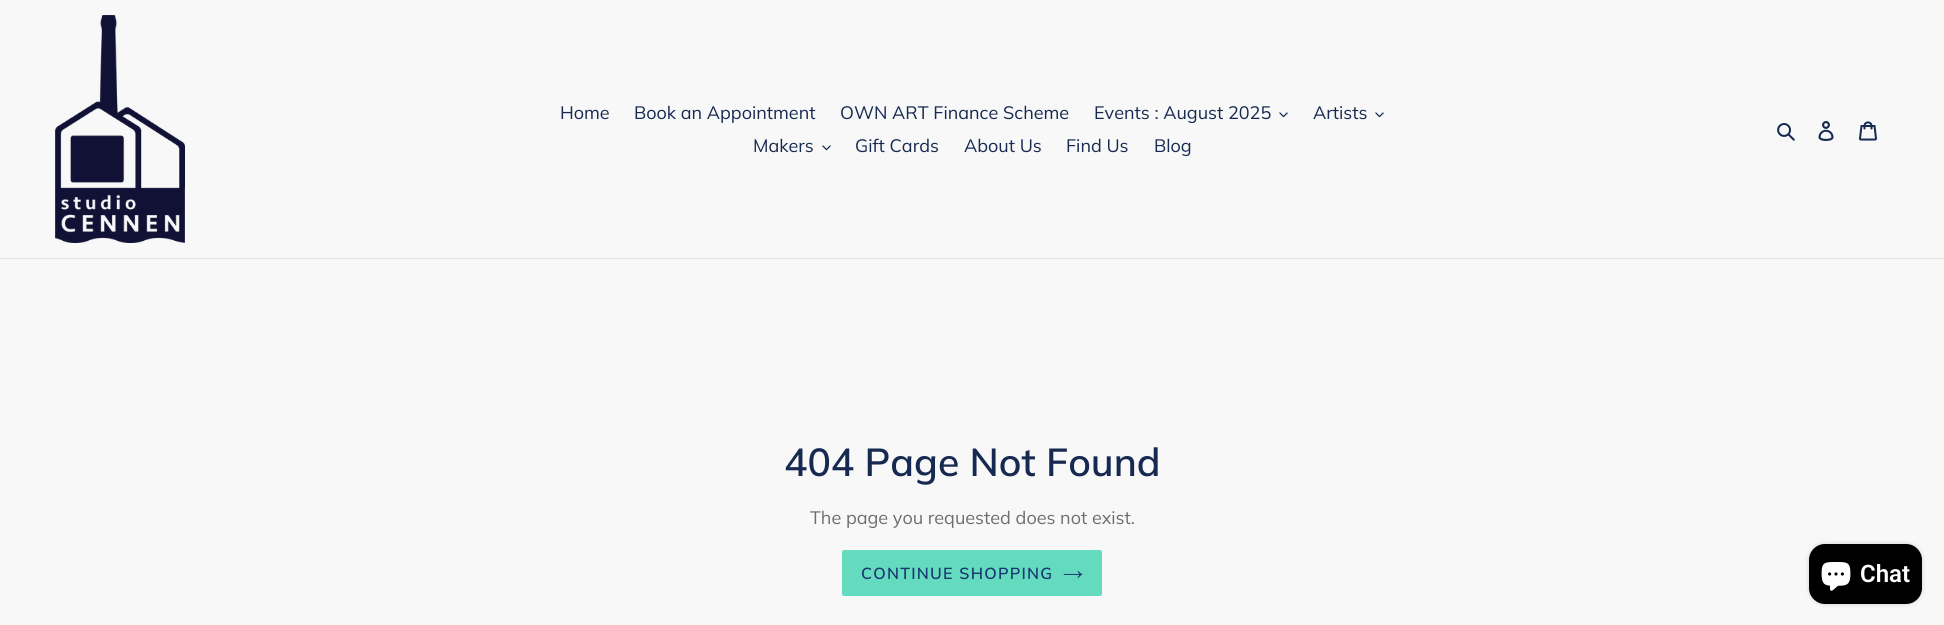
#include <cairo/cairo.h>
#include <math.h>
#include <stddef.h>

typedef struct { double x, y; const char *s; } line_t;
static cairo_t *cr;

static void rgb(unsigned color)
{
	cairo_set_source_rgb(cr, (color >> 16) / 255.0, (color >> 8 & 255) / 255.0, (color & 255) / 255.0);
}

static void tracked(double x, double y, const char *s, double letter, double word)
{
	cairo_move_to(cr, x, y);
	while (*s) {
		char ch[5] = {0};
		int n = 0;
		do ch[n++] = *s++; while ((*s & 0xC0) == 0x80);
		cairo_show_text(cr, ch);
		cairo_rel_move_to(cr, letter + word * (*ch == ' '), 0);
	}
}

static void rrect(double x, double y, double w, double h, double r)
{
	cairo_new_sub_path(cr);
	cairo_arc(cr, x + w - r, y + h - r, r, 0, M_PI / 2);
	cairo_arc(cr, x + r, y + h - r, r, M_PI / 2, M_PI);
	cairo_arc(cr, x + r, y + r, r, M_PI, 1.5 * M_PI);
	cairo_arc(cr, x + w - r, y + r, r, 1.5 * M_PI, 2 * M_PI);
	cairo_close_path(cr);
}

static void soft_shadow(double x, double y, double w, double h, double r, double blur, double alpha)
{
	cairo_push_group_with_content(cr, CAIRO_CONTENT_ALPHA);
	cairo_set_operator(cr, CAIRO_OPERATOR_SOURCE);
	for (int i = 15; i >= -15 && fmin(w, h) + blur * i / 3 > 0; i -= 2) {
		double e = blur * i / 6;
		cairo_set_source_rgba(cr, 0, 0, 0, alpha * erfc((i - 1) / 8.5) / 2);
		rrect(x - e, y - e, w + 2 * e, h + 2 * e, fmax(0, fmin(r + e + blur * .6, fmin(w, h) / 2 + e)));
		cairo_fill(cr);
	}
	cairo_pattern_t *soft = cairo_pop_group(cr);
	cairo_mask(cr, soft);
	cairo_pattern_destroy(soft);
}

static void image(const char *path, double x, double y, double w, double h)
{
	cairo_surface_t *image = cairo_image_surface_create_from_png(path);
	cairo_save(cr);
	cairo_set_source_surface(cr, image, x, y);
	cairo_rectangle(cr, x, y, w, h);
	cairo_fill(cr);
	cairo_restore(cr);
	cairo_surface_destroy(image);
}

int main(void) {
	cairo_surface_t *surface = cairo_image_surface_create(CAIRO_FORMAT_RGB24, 1944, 625);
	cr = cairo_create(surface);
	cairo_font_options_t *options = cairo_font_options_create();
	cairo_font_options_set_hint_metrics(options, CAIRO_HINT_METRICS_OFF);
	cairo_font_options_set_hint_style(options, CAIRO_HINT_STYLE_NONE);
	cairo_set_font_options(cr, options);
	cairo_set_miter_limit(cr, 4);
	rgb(0xf8f8f8);
	cairo_paint(cr);
	rgb(0xe4e4e4);
	cairo_rectangle(cr, 0, 258, 1944, 1);
	cairo_fill(cr);
	image("img/1.png", 55, 15, 130, 228);
	image("img/2.png", 1279, 112, 9, 6);
	image("img/2.png", 1375, 112, 9, 6);
	image("img/2.png", 822, 145, 9, 6);
	image("img/3.png", 1777, 123, 18, 18);
	image("img/4.png", 1818, 121, 16, 20);
	image("img/5.png", 1859, 121, 18, 20);
	rgb(0x64dbbf);
	rrect(842, 550, 260, 46, 2);
	cairo_fill(cr);
	image("img/6.png", 1063, 570, 20, 8);
	rgb(0x000000);
	soft_shadow(1809, 544, 113, 60, 16, 2.5, 0.15);
	rgb(0x000000);
	rrect(1809, 544, 113, 60, 16);
	cairo_fill(cr);
	image("img/7.png", 1821, 562, 30, 29);
	cairo_select_font_face(cr, "Muli", CAIRO_FONT_SLANT_NORMAL, CAIRO_FONT_WEIGHT_NORMAL);
	cairo_set_font_size(cr, 18);
	rgb(0x162950);
	{
		static const line_t items[] = {
			{560, 119, "Home"},
			{634, 119, "Book an Appointment"},
			{840, 119, "OWN ART Finance Scheme"},
			{1094, 119, "Events : August 2025"},
			{1313, 119, "Artists"},
			{753, 152, "Makers"},
			{855, 152, "Gift Cards"},
			{964, 152, "About Us"},
			{1066, 152, "Find Us"},
			{1154, 152, "Blog"},
		};
		for (size_t i = 0; i < sizeof items / sizeof *items; i++) {
			cairo_move_to(cr, items[i].x, items[i].y);
			cairo_show_text(cr, items[i].s);
		}
	}
	cairo_select_font_face(cr, "Muli SemiBold", CAIRO_FONT_SLANT_NORMAL, CAIRO_FONT_WEIGHT_NORMAL);
	cairo_set_font_size(cr, 39);
	cairo_move_to(cr, 784, 476);
	cairo_show_text(cr, "404 Page Not Found");
	cairo_select_font_face(cr, "Muli", CAIRO_FONT_SLANT_NORMAL, CAIRO_FONT_WEIGHT_NORMAL);
	cairo_set_font_size(cr, 18);
	rgb(0x6d6d6d);
	cairo_move_to(cr, 810, 524);
	cairo_show_text(cr, "The page you requested does not exist.");
	cairo_select_font_face(cr, "Muli SemiBold", CAIRO_FONT_SLANT_NORMAL, CAIRO_FONT_WEIGHT_NORMAL);
	cairo_set_font_size(cr, 16);
	rgb(0x193771);
	tracked(861, 579, "CONTINUE SHOPPING", 1.25, 0);
	cairo_select_font_face(cr, "Roboto SemiBold", CAIRO_FONT_SLANT_NORMAL, CAIRO_FONT_WEIGHT_NORMAL);
	cairo_set_font_size(cr, 24);
	rgb(0xffffff);
	cairo_move_to(cr, 1860, 582);
	cairo_show_text(cr, "Chat");
	cairo_surface_write_to_png(surface, "page.png");
	cairo_font_options_destroy(options);
	cairo_destroy(cr);
	cairo_surface_destroy(surface);
	return 0;
}
